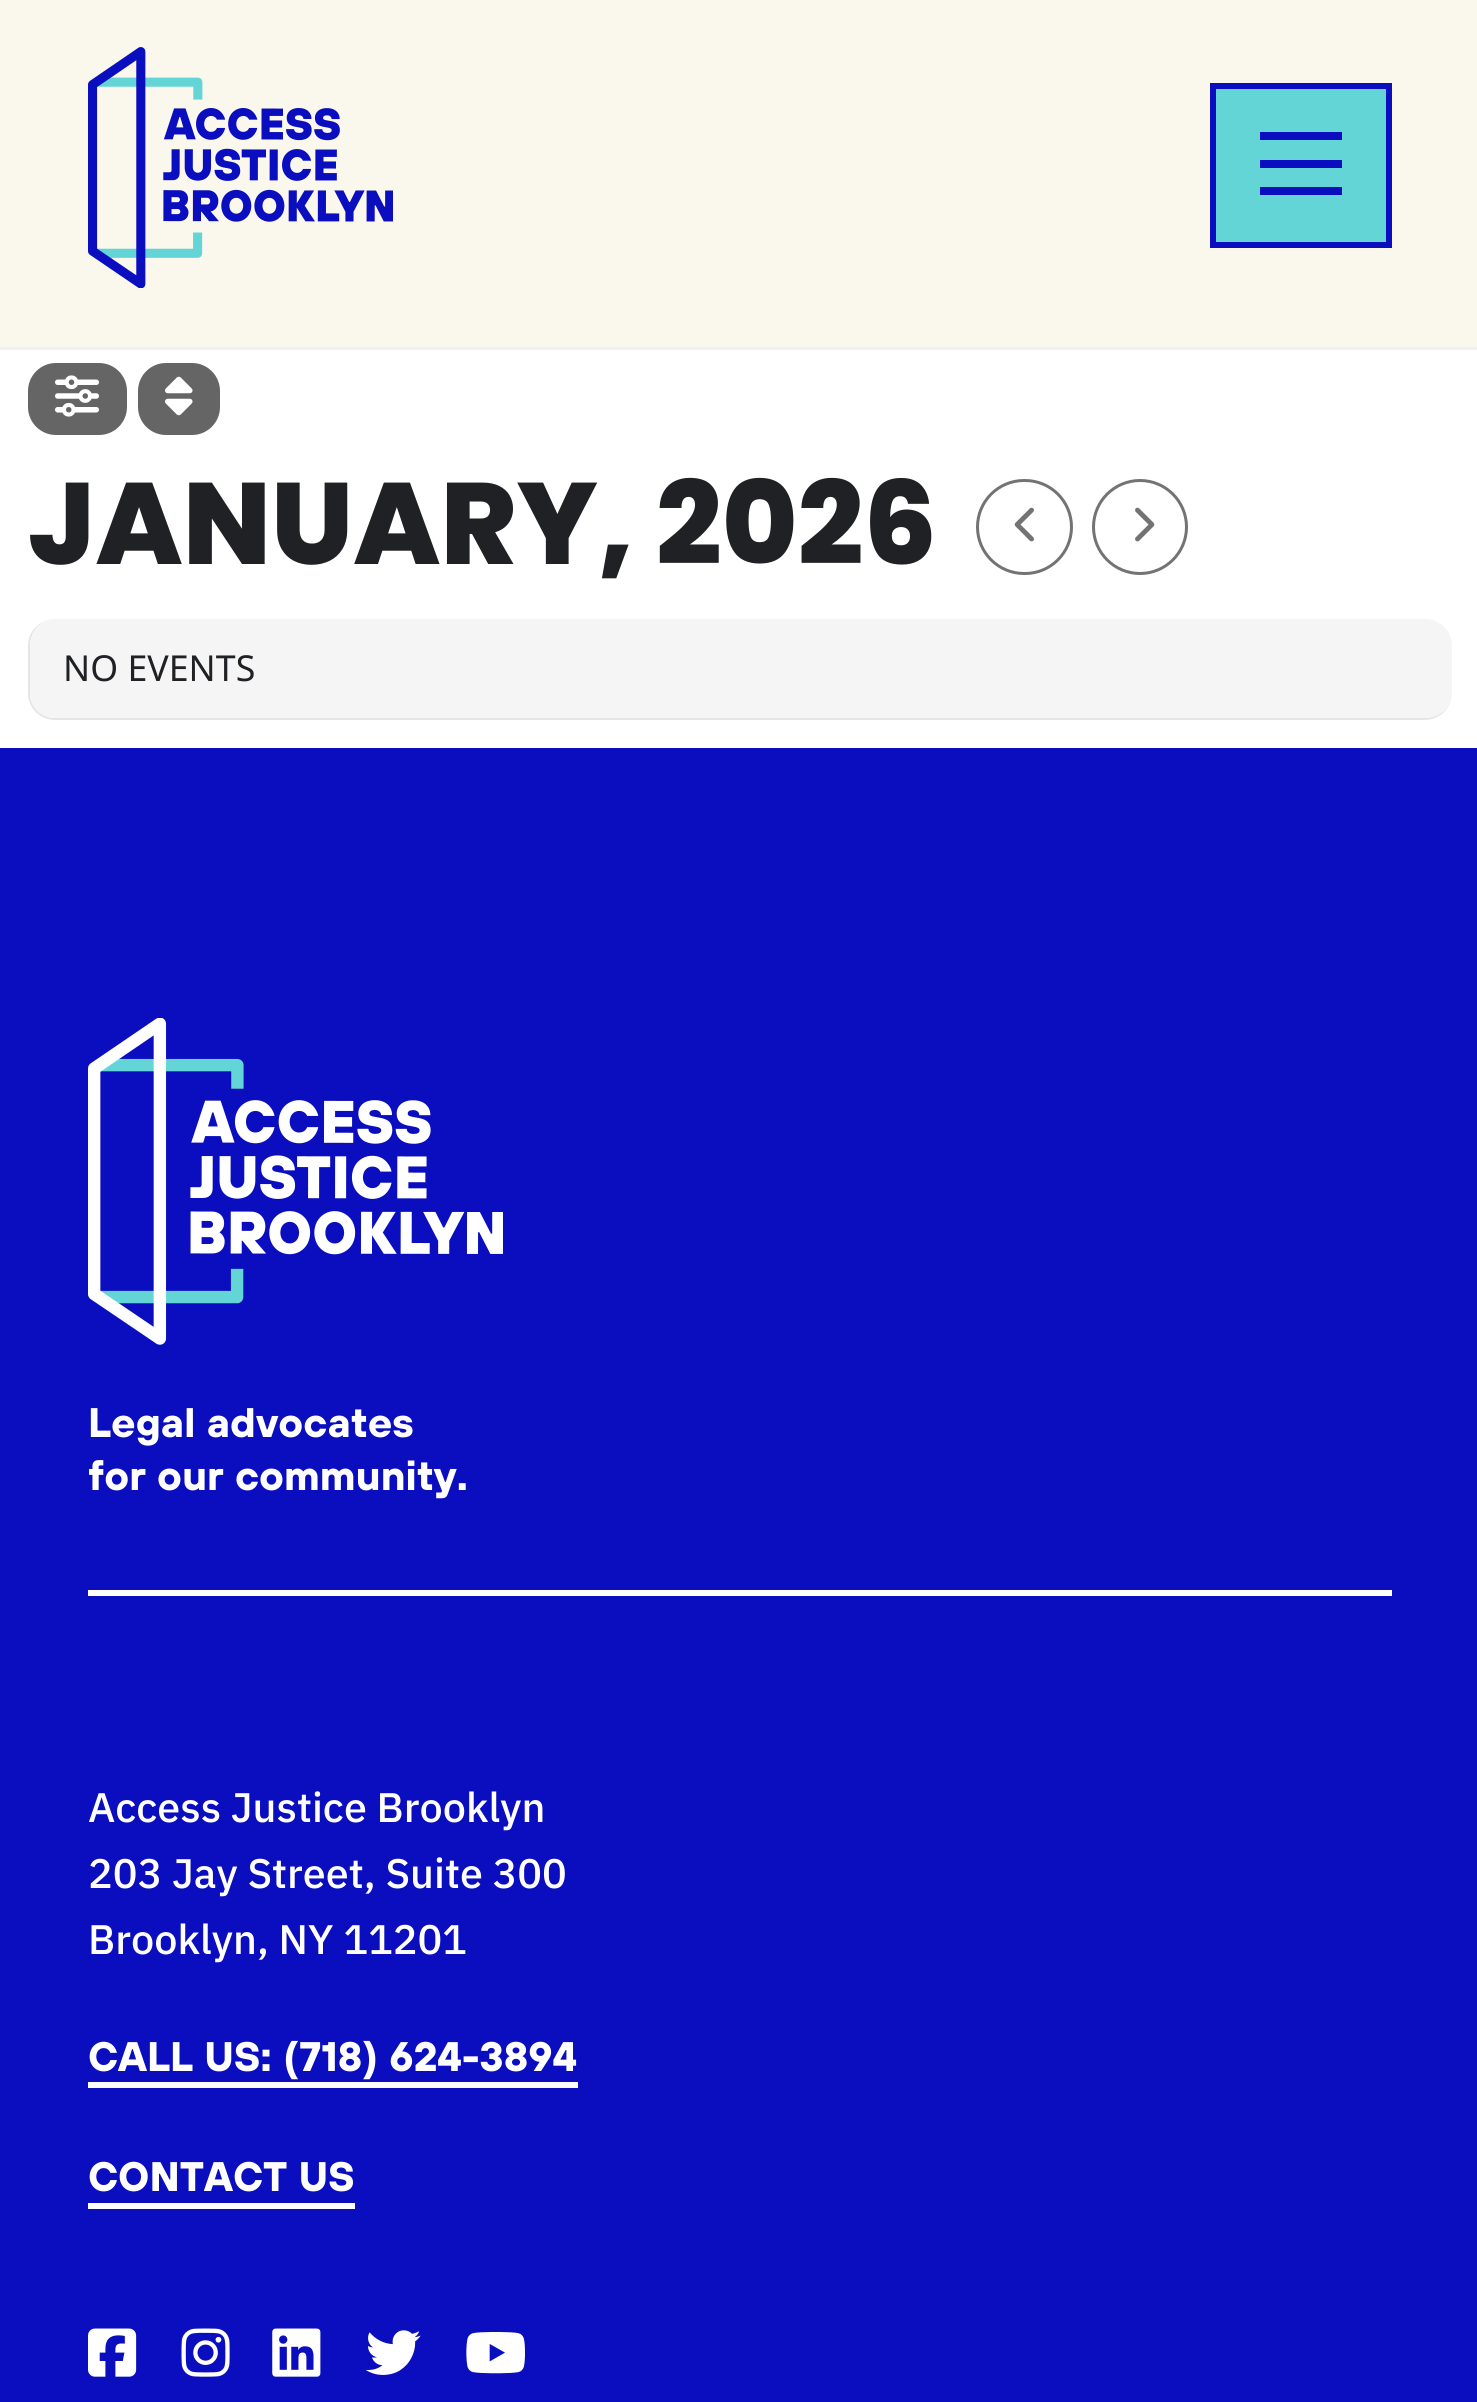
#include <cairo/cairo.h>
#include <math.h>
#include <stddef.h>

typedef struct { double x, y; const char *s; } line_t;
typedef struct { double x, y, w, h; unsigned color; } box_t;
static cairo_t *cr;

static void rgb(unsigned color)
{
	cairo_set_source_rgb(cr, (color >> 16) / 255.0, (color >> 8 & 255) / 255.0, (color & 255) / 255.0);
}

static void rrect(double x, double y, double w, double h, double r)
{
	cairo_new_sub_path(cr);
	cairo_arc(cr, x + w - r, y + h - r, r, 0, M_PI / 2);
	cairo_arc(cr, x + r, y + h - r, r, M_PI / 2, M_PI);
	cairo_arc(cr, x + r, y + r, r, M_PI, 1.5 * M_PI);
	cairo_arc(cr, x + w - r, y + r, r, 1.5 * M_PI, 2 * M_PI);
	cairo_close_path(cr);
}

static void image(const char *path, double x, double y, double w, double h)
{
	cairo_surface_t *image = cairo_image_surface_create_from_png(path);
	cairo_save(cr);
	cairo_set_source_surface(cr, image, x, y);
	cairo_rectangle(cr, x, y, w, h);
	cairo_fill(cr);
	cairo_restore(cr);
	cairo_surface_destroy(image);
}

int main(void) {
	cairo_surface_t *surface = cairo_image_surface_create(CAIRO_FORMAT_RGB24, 1477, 2402);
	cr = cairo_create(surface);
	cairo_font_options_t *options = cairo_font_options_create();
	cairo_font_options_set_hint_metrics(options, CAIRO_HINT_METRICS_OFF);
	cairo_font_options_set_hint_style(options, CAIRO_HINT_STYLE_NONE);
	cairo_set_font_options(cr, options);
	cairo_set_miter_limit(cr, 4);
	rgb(0xffffff);
	cairo_paint(cr);
	rgb(0xfaf7ed);
	cairo_rectangle(cr, 0, 0, 1477, 347);
	cairo_fill(cr);
	rgb(0xf1f1f1);
	cairo_rectangle(cr, 0, 347, 1477, 3);
	cairo_fill(cr);
	image("img/1.png", 88, 47, 305, 241);
	rgb(0x64d5d6);
	cairo_rectangle(cr, 1213, 86, 176, 159);
	cairo_fill_preserve(cr);
	rgb(0x0a0ebf);
	cairo_set_line_width(cr, 6);
	cairo_stroke(cr);
	{
		static const box_t items[] = {
			{1260, 132, 82, 8, 0x0a0ebf},
			{1260, 160, 82, 8, 0x0a0ebf},
			{1260, 187, 82, 8, 0x0a0ebf},
		};
		for (size_t i = 0; i < sizeof items / sizeof *items; i++) {
			rgb(items[i].color);
			cairo_rectangle(cr, items[i].x, items[i].y, items[i].w, items[i].h);
			cairo_fill(cr);
		}
	}
	rgb(0x656565);
	rrect(28, 363, 99, 72, 28);
	cairo_fill(cr);
	image("img/2.png", 55, 375, 44, 42);
	rrect(138, 363, 82, 72, 28);
	cairo_fill(cr);
	image("img/3.png", 165, 376, 28, 40);
	rrect(977.5, 480.5, 94, 93, 46.5);
	rgb(0x737373);
	cairo_set_line_width(cr, 3);
	cairo_stroke(cr);
	image("img/4.png", 1014, 507, 20, 35);
	cairo_arc(cr, 1140, 527, 46.5, 0, 2 * M_PI);
	cairo_stroke(cr);
	image("img/5.png", 1135, 507, 20, 35);
	rgb(0xe5e5e5);
	cairo_set_fill_rule(cr, CAIRO_FILL_RULE_EVEN_ODD);
	cairo_new_path(cr);
	cairo_move_to(cr, 55, 619);
	cairo_line_to(cr, 1424, 619);
	cairo_curve_to(cr, 1440, 619, 1452, 631, 1452, 646);
	cairo_line_to(cr, 1452, 693);
	cairo_curve_to(cr, 1452, 708, 1440, 720, 1424, 720);
	cairo_line_to(cr, 55, 720);
	cairo_curve_to(cr, 40, 720, 28, 708, 28, 693);
	cairo_line_to(cr, 28, 646);
	cairo_curve_to(cr, 28, 631, 40, 619, 55, 619);
	cairo_close_path(cr);
	cairo_move_to(cr, 55, 619);
	cairo_line_to(cr, 1424, 619);
	cairo_curve_to(cr, 1440, 619, 1452, 631, 1452, 646);
	cairo_line_to(cr, 1452, 693);
	cairo_curve_to(cr, 1452, 707, 1440, 718, 1424, 718);
	cairo_line_to(cr, 55, 718);
	cairo_curve_to(cr, 41, 718, 30, 707, 30, 693);
	cairo_line_to(cr, 30, 646);
	cairo_curve_to(cr, 30, 631, 41, 619, 55, 619);
	cairo_close_path(cr);
	cairo_fill(cr);
	rgb(0xf5f5f5);
	cairo_set_fill_rule(cr, CAIRO_FILL_RULE_WINDING);
	cairo_new_path(cr);
	cairo_move_to(cr, 1452, 693);
	cairo_line_to(cr, 1452, 646);
	cairo_curve_to(cr, 1452, 632, 1442, 621, 1428, 619);
	cairo_line_to(cr, 52, 619);
	cairo_curve_to(cr, 40, 621, 30, 632, 30, 646);
	cairo_line_to(cr, 30, 693);
	cairo_curve_to(cr, 30, 707, 41, 718, 55, 718);
	cairo_line_to(cr, 1424, 718);
	cairo_curve_to(cr, 1440, 718, 1452, 707, 1452, 693);
	cairo_close_path(cr);
	cairo_fill(cr);
	rgb(0x0a0ebf);
	cairo_rectangle(cr, 0, 748, 1477, 1654);
	cairo_fill(cr);
	rgb(0xffffff);
	cairo_rectangle(cr, 88, 1590, 1304, 6);
	cairo_fill(cr);
	image("img/6.png", 88, 1018, 415, 327);
	cairo_rectangle(cr, 88, 2082, 490, 6);
	cairo_fill(cr);
	cairo_rectangle(cr, 88, 2203, 267, 6);
	cairo_fill(cr);
	image("img/7.png", 88, 2328, 49, 49);
	image("img/8.png", 181, 2328, 49, 49);
	image("img/9.png", 272, 2328, 49, 49);
	image("img/10.png", 366, 2330, 55, 45);
	image("img/11.png", 466, 2332, 59, 42);
	cairo_select_font_face(cr, "Poppins ExtraBold", CAIRO_FONT_SLANT_NORMAL, CAIRO_FONT_WEIGHT_NORMAL);
	cairo_set_font_size(cr, 115.5);
	rgb(0x202124);
	cairo_move_to(cr, 28, 564);
	cairo_show_text(cr, "JANUARY, 2026");
	cairo_select_font_face(cr, "Noto Sans", CAIRO_FONT_SLANT_NORMAL, CAIRO_FONT_WEIGHT_NORMAL);
	cairo_set_font_size(cr, 35.75);
	cairo_move_to(cr, 63, 681);
	cairo_show_text(cr, "NO EVENTS");
	cairo_select_font_face(cr, "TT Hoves", CAIRO_FONT_SLANT_NORMAL, CAIRO_FONT_WEIGHT_BOLD);
	cairo_set_font_size(cr, 41.25);
	rgb(0xffffff);
	cairo_move_to(cr, 88, 1437);
	cairo_show_text(cr, "Legal advocates");
	cairo_move_to(cr, 88, 1490);
	cairo_show_text(cr, "for our community.");
	cairo_select_font_face(cr, "IBM Plex Sans Medium", CAIRO_FONT_SLANT_NORMAL, CAIRO_FONT_WEIGHT_NORMAL);
	{
		static const line_t items[] = {
			{88, 1822, "Access Justice Brooklyn"},
			{88, 1888, "203 Jay Street, Suite 300"},
			{88, 1954, "Brooklyn, NY 11201"},
		};
		for (size_t i = 0; i < sizeof items / sizeof *items; i++) {
			cairo_move_to(cr, items[i].x, items[i].y);
			cairo_show_text(cr, items[i].s);
		}
	}
	cairo_select_font_face(cr, "TT Hoves", CAIRO_FONT_SLANT_NORMAL, CAIRO_FONT_WEIGHT_BOLD);
	cairo_move_to(cr, 88, 2071);
	cairo_show_text(cr, "CALL US: (718) 624-3894");
	cairo_move_to(cr, 88, 2191);
	cairo_show_text(cr, "CONTACT US");
	cairo_surface_write_to_png(surface, "page.png");
	cairo_font_options_destroy(options);
	cairo_destroy(cr);
	cairo_surface_destroy(surface);
	return 0;
}
